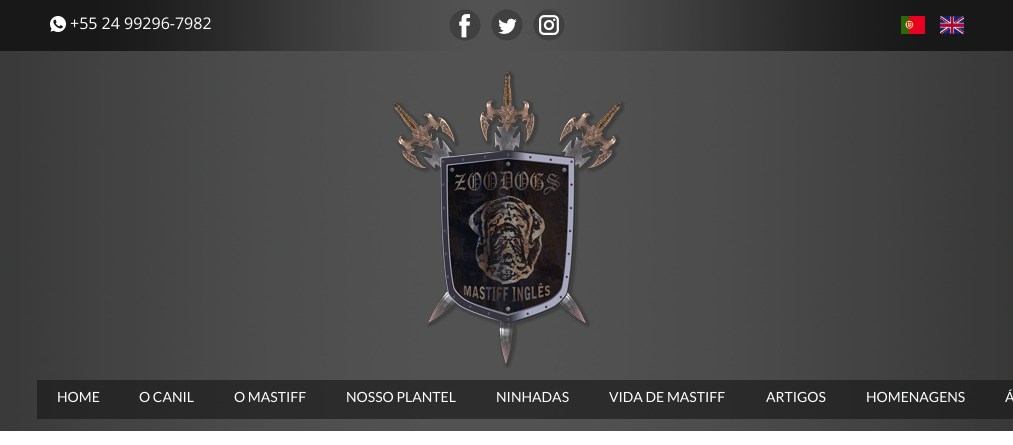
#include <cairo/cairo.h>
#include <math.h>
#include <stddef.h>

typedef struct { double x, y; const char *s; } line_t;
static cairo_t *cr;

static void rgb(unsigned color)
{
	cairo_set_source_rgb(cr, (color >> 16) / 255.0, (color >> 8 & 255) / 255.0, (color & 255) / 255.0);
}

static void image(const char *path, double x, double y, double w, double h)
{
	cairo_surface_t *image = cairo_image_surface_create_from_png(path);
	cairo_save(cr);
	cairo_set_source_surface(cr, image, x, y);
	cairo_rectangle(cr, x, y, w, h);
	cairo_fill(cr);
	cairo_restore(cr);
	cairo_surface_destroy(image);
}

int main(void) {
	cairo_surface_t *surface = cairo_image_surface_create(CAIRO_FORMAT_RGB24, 1013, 445);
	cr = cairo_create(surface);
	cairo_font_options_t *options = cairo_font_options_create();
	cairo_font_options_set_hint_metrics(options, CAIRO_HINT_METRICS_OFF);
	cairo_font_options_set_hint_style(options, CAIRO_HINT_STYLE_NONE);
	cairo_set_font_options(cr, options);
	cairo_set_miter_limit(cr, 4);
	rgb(0xffffff);
	cairo_paint(cr);
	image("img/1.png", 0, 0, 1013, 51);
	image("img/2.png", 50, 16, 16, 16);
	image("img/3.png", 449, 9, 32, 32);
	image("img/4.png", 491, 9, 32, 32);
	image("img/5.png", 533, 9, 32, 32);
	image("img/6.png", 901, 16, 24, 18);
	image("img/7.png", 940, 16, 24, 18);
	image("img/8.png", 0, 51, 1013, 380);
	image("img/9.png", 393, 71, 232, 297);
	cairo_set_source_rgba(cr, 0.102, 0.102, 0.102, 0.65);
	cairo_rectangle(cr, 37, 380, 82, 39);
	cairo_fill(cr);
	cairo_rectangle(cr, 119, 380, 95, 39);
	cairo_fill(cr);
	cairo_rectangle(cr, 214, 380, 112, 39);
	cairo_fill(cr);
	cairo_rectangle(cr, 326, 380, 150, 39);
	cairo_fill(cr);
	cairo_rectangle(cr, 476, 380, 113, 39);
	cairo_fill(cr);
	cairo_rectangle(cr, 589, 380, 157, 39);
	cairo_fill(cr);
	cairo_rectangle(cr, 746, 380, 100, 39);
	cairo_fill(cr);
	cairo_rectangle(cr, 846, 380, 139, 39);
	cairo_fill(cr);
	cairo_rectangle(cr, 985, 380, 28, 39);
	cairo_fill(cr);
	cairo_select_font_face(cr, "Open Sans", CAIRO_FONT_SLANT_NORMAL, CAIRO_FONT_WEIGHT_NORMAL);
	cairo_set_font_size(cr, 16);
	rgb(0xffffff);
	cairo_move_to(cr, 70, 29);
	cairo_show_text(cr, "+55 24 99296-7982");
	cairo_select_font_face(cr, "Lato", CAIRO_FONT_SLANT_NORMAL, CAIRO_FONT_WEIGHT_NORMAL);
	cairo_set_font_size(cr, 14);
	{
		static const line_t items[] = {
			{57, 402, "HOME"},
			{139, 402, "O CANIL"},
			{234, 402, "O MASTIFF"},
			{346, 402, "NOSSO PLANTEL"},
			{496, 402, "NINHADAS"},
			{609, 402, "VIDA DE MASTIFF"},
			{766, 402, "ARTIGOS"},
			{866, 402, "HOMENAGENS"},
			{1005, 402, "Á"},
		};
		for (size_t i = 0; i < sizeof items / sizeof *items; i++) {
			cairo_move_to(cr, items[i].x, items[i].y);
			cairo_show_text(cr, items[i].s);
		}
	}
	cairo_surface_write_to_png(surface, "page.png");
	cairo_font_options_destroy(options);
	cairo_destroy(cr);
	cairo_surface_destroy(surface);
	return 0;
}
